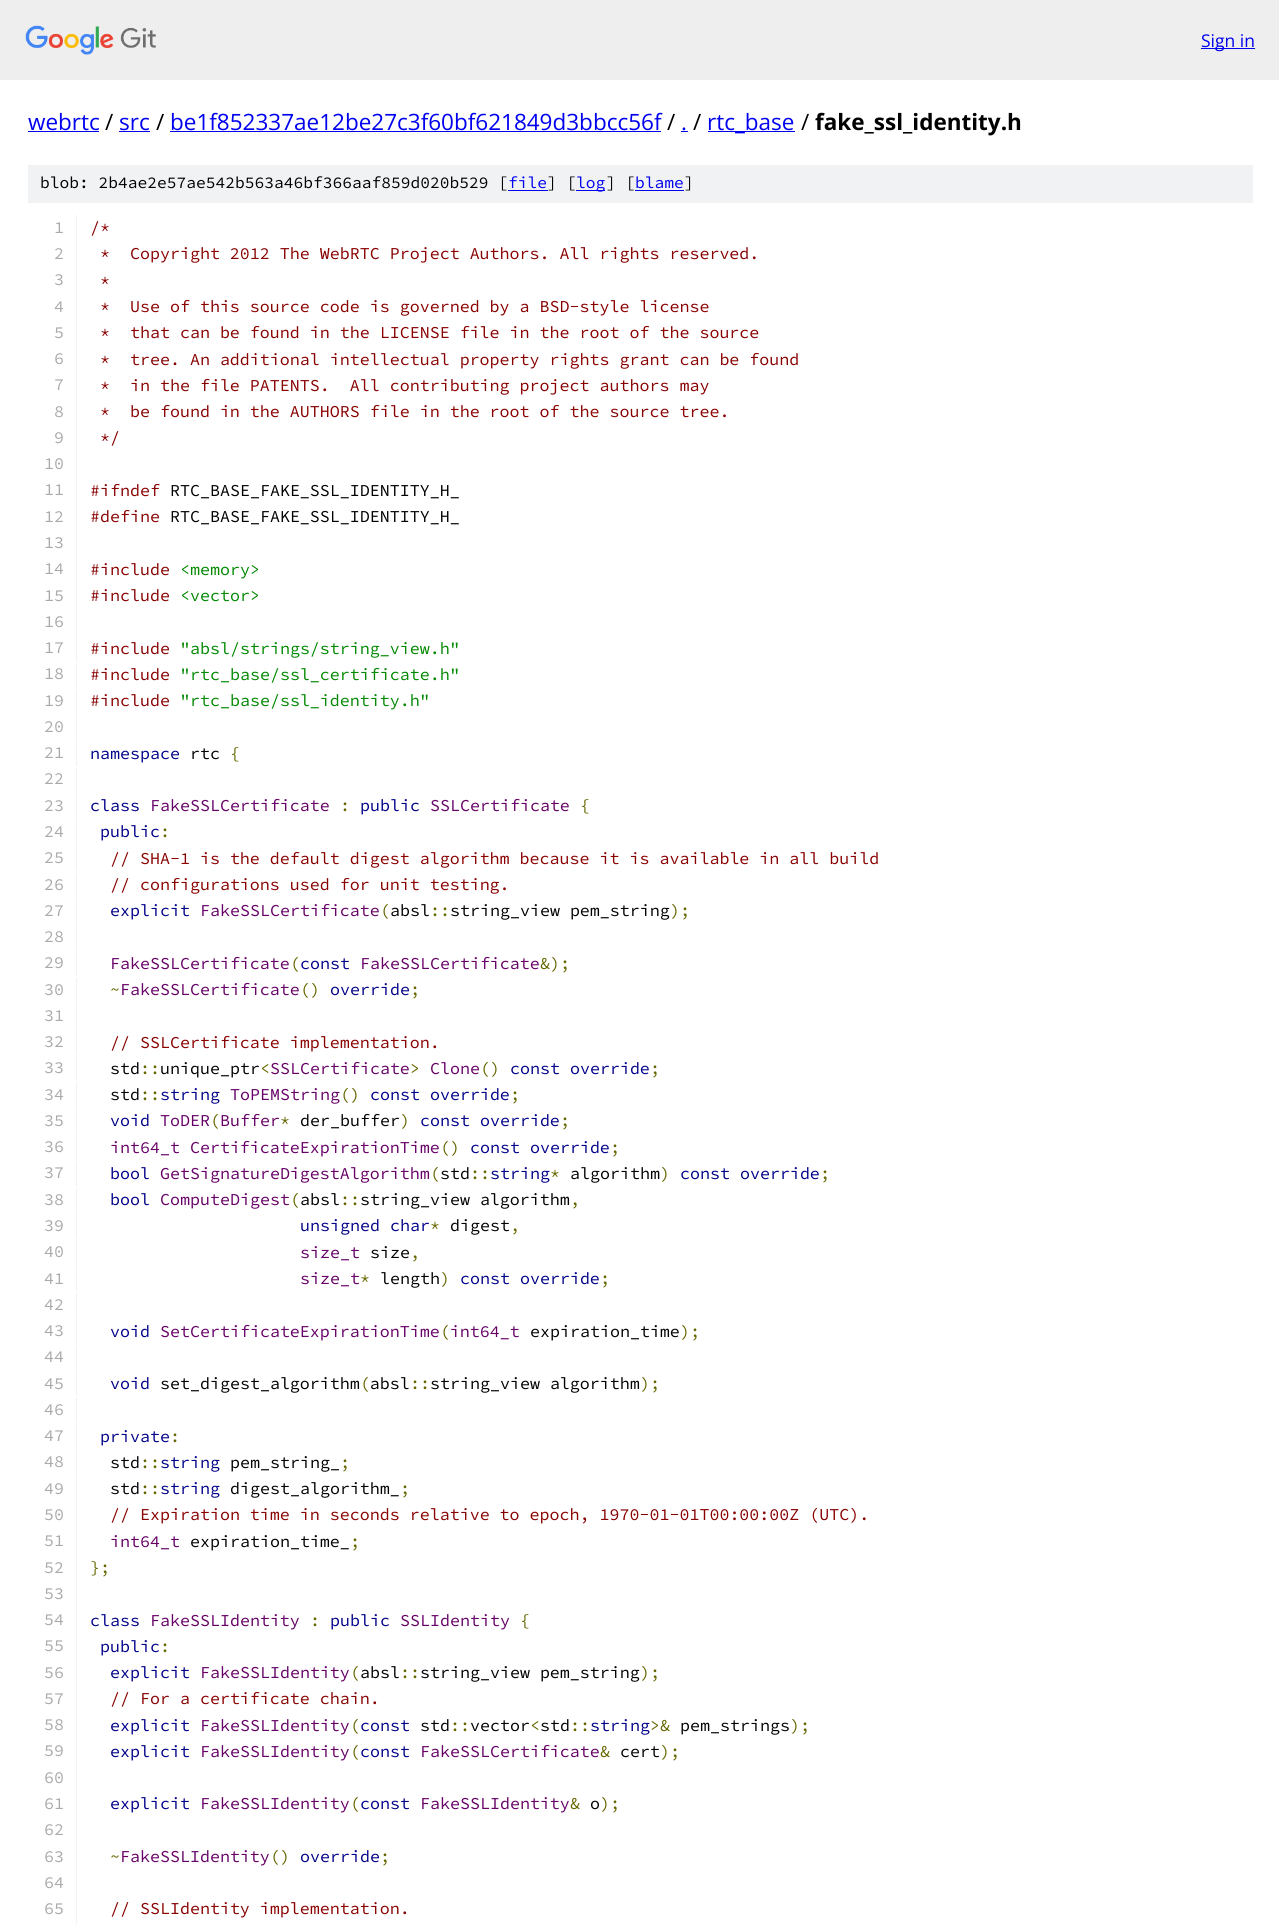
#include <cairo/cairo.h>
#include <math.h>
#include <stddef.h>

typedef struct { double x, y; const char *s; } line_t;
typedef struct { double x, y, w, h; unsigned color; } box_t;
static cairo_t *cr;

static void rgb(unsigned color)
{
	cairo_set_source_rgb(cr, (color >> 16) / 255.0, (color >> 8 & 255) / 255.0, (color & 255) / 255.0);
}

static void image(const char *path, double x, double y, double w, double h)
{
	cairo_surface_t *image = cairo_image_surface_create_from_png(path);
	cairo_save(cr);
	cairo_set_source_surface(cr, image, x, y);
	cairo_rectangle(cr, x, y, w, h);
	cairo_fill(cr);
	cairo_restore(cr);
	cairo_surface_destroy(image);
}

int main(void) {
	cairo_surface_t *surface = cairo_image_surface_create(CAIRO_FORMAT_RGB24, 1279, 1924);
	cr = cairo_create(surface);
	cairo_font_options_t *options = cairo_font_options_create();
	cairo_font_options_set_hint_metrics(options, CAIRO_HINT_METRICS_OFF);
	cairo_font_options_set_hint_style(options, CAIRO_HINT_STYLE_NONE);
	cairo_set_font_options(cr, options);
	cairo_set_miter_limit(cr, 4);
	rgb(0xffffff);
	cairo_paint(cr);
	rgb(0xeeeeee);
	cairo_rectangle(cr, 0, 0, 1279, 80);
	cairo_fill(cr);
	image("img/1.png", 25, 25, 131, 30);
	{
		static const box_t items[] = {
			{1201, 48, 54, 1, 0x0000ee},
			{28, 131, 71, 1, 0x0000ee},
			{119, 131, 31, 1, 0x0000ee},
			{170, 131, 491, 1, 0x0000ee},
			{681, 131, 7, 1, 0x0000ee},
			{708, 131, 87, 1, 0x0000ee},
			{28, 165, 1225, 38, 0xf1f2f3},
			{508, 190, 40, 1, 0x0000ee},
			{576, 190, 29, 1, 0x0000ee},
			{635, 190, 49, 1, 0x0000ee},
			{76, 215, 1, 446, 0xf1f2f3},
			{76, 663, 1, 25, 0xf1f2f3},
			{76, 689, 1, 25, 0xf1f2f3},
			{76, 715, 1, 25, 0xf1f2f3},
			{76, 741, 1, 25, 0xf1f2f3},
			{76, 768, 1, 25, 0xf1f2f3},
			{76, 794, 1, 25, 0xf1f2f3},
			{76, 820, 1, 25, 0xf1f2f3},
			{76, 846, 1, 25, 0xf1f2f3},
			{76, 873, 1, 25, 0xf1f2f3},
			{76, 899, 1, 25, 0xf1f2f3},
			{76, 925, 1, 25, 0xf1f2f3},
			{76, 951, 1, 25, 0xf1f2f3},
			{76, 978, 1, 25, 0xf1f2f3},
			{76, 1004, 1, 25, 0xf1f2f3},
			{76, 1030, 1, 25, 0xf1f2f3},
			{76, 1056, 1, 25, 0xf1f2f3},
			{76, 1083, 1, 25, 0xf1f2f3},
			{76, 1109, 1, 25, 0xf1f2f3},
			{76, 1135, 1, 25, 0xf1f2f3},
			{76, 1161, 1, 25, 0xf1f2f3},
			{76, 1188, 1, 25, 0xf1f2f3},
			{76, 1214, 1, 25, 0xf1f2f3},
			{76, 1240, 1, 25, 0xf1f2f3},
			{76, 1266, 1, 25, 0xf1f2f3},
			{76, 1293, 1, 25, 0xf1f2f3},
			{76, 1319, 1, 25, 0xf1f2f3},
			{76, 1345, 1, 25, 0xf1f2f3},
			{76, 1371, 1, 25, 0xf1f2f3},
			{76, 1398, 1, 25, 0xf1f2f3},
			{76, 1424, 1, 25, 0xf1f2f3},
			{76, 1450, 1, 25, 0xf1f2f3},
			{76, 1476, 1, 448, 0xf1f2f3},
		};
		for (size_t i = 0; i < sizeof items / sizeof *items; i++) {
			rgb(items[i].color);
			cairo_rectangle(cr, items[i].x, items[i].y, items[i].w, items[i].h);
			cairo_fill(cr);
		}
	}
	cairo_select_font_face(cr, "Open Sans", CAIRO_FONT_SLANT_NORMAL, CAIRO_FONT_WEIGHT_NORMAL);
	cairo_set_font_size(cr, 17.5);
	rgb(0x0000ee);
	cairo_move_to(cr, 1201, 47);
	cairo_show_text(cr, "Sign in");
	cairo_set_font_size(cr, 22.5);
	cairo_move_to(cr, 28, 130);
	cairo_show_text(cr, "webrtc");
	rgb(0x000000);
	cairo_move_to(cr, 105, 130);
	cairo_show_text(cr, "/");
	rgb(0x0000ee);
	cairo_move_to(cr, 119, 130);
	cairo_show_text(cr, "src");
	rgb(0x000000);
	cairo_move_to(cr, 156, 130);
	cairo_show_text(cr, "/");
	rgb(0x0000ee);
	cairo_move_to(cr, 170, 130);
	cairo_show_text(cr, "be1f852337ae12be27c3f60bf621849d3bbcc56f");
	rgb(0x000000);
	cairo_move_to(cr, 667, 130);
	cairo_show_text(cr, "/");
	rgb(0x0000ee);
	cairo_move_to(cr, 681, 130);
	cairo_show_text(cr, ".");
	rgb(0x000000);
	cairo_move_to(cr, 693, 130);
	cairo_show_text(cr, "/");
	rgb(0x0000ee);
	cairo_move_to(cr, 707, 130);
	cairo_show_text(cr, "rtc_base");
	rgb(0x000000);
	cairo_move_to(cr, 801, 130);
	cairo_show_text(cr, "/");
	cairo_select_font_face(cr, "Open Sans", CAIRO_FONT_SLANT_NORMAL, CAIRO_FONT_WEIGHT_BOLD);
	cairo_move_to(cr, 815, 130);
	cairo_show_text(cr, "fake_ssl_identity.h");
	cairo_select_font_face(cr, "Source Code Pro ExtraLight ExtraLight", CAIRO_FONT_SLANT_NORMAL, CAIRO_FONT_WEIGHT_NORMAL);
	cairo_set_font_size(cr, 16.25);
	cairo_move_to(cr, 40, 188);
	cairo_show_text(cr, "blob: 2b4ae2e57ae542b563a46bf366aaf859d020b529 [");
	rgb(0x0000ee);
	cairo_move_to(cr, 508, 188);
	cairo_show_text(cr, "file");
	rgb(0x000000);
	cairo_move_to(cr, 547, 188);
	cairo_show_text(cr, "] [");
	rgb(0x0000ee);
	cairo_move_to(cr, 576, 188);
	cairo_show_text(cr, "log");
	rgb(0x000000);
	cairo_move_to(cr, 606, 188);
	cairo_show_text(cr, "] [");
	rgb(0x0000ee);
	cairo_move_to(cr, 635, 188);
	cairo_show_text(cr, "blame");
	rgb(0x000000);
	cairo_move_to(cr, 684, 188);
	cairo_show_text(cr, "]");
	cairo_set_font_size(cr, 16.65);
	rgb(0xaaaaaa);
	cairo_move_to(cr, 54, 233);
	cairo_show_text(cr, "1");
	rgb(0x880000);
	cairo_move_to(cr, 90, 233);
	cairo_show_text(cr, "/*");
	rgb(0xaaaaaa);
	cairo_move_to(cr, 54, 259);
	cairo_show_text(cr, "2");
	rgb(0x880000);
	cairo_move_to(cr, 100, 259);
	cairo_show_text(cr, "*  Copyright 2012 The WebRTC Project Authors. All rights reserved.");
	rgb(0xaaaaaa);
	cairo_move_to(cr, 54, 285);
	cairo_show_text(cr, "3");
	rgb(0x880000);
	cairo_move_to(cr, 100, 286);
	cairo_show_text(cr, "*");
	rgb(0xaaaaaa);
	cairo_move_to(cr, 54, 312);
	cairo_show_text(cr, "4");
	rgb(0x880000);
	cairo_move_to(cr, 100, 312);
	cairo_show_text(cr, "*  Use of this source code is governed by a BSD-style license");
	rgb(0xaaaaaa);
	cairo_move_to(cr, 54, 338);
	cairo_show_text(cr, "5");
	rgb(0x880000);
	cairo_move_to(cr, 100, 338);
	cairo_show_text(cr, "*  that can be found in the LICENSE file in the root of the source");
	rgb(0xaaaaaa);
	cairo_move_to(cr, 54, 364);
	cairo_show_text(cr, "6");
	rgb(0x880000);
	cairo_move_to(cr, 100, 365);
	cairo_show_text(cr, "*  tree. An additional intellectual property rights grant can be found");
	rgb(0xaaaaaa);
	cairo_move_to(cr, 54, 390);
	cairo_show_text(cr, "7");
	rgb(0x880000);
	cairo_move_to(cr, 100, 391);
	cairo_show_text(cr, "*  in the file PATENTS.  All contributing project authors may");
	rgb(0xaaaaaa);
	cairo_move_to(cr, 54, 417);
	cairo_show_text(cr, "8");
	rgb(0x880000);
	cairo_move_to(cr, 100, 417);
	cairo_show_text(cr, "*  be found in the AUTHORS file in the root of the source tree.");
	rgb(0xaaaaaa);
	cairo_move_to(cr, 54, 443);
	cairo_show_text(cr, "9");
	rgb(0x880000);
	cairo_move_to(cr, 100, 443);
	cairo_show_text(cr, "*/");
	rgb(0xaaaaaa);
	cairo_move_to(cr, 44, 469);
	cairo_show_text(cr, "10");
	cairo_move_to(cr, 44, 495);
	cairo_show_text(cr, "11");
	rgb(0x880000);
	cairo_move_to(cr, 90, 496);
	cairo_show_text(cr, "#ifndef");
	rgb(0x000000);
	cairo_move_to(cr, 170, 496);
	cairo_show_text(cr, "RTC_BASE_FAKE_SSL_IDENTITY_H_");
	rgb(0xaaaaaa);
	cairo_move_to(cr, 44, 522);
	cairo_show_text(cr, "12");
	rgb(0x880000);
	cairo_move_to(cr, 90, 522);
	cairo_show_text(cr, "#define");
	rgb(0x000000);
	cairo_move_to(cr, 170, 522);
	cairo_show_text(cr, "RTC_BASE_FAKE_SSL_IDENTITY_H_");
	rgb(0xaaaaaa);
	cairo_move_to(cr, 44, 548);
	cairo_show_text(cr, "13");
	cairo_move_to(cr, 44, 574);
	cairo_show_text(cr, "14");
	rgb(0x880000);
	cairo_move_to(cr, 90, 575);
	cairo_show_text(cr, "#include");
	rgb(0x008800);
	cairo_move_to(cr, 180, 575);
	cairo_show_text(cr, "<memory>");
	rgb(0xaaaaaa);
	cairo_move_to(cr, 44, 601);
	cairo_show_text(cr, "15");
	rgb(0x880000);
	cairo_move_to(cr, 90, 601);
	cairo_show_text(cr, "#include");
	rgb(0x008800);
	cairo_move_to(cr, 180, 601);
	cairo_show_text(cr, "<vector>");
	rgb(0xaaaaaa);
	cairo_move_to(cr, 44, 627);
	cairo_show_text(cr, "16");
	cairo_move_to(cr, 44, 653);
	cairo_show_text(cr, "17");
	rgb(0x880000);
	cairo_move_to(cr, 90, 654);
	cairo_show_text(cr, "#include");
	rgb(0x008800);
	cairo_move_to(cr, 180, 654);
	cairo_show_text(cr, "\"absl/strings/string_view.h\"");
	rgb(0xaaaaaa);
	cairo_move_to(cr, 44, 679);
	cairo_show_text(cr, "18");
	rgb(0x880000);
	cairo_move_to(cr, 90, 680);
	cairo_show_text(cr, "#include");
	rgb(0x008800);
	cairo_move_to(cr, 180, 680);
	cairo_show_text(cr, "\"rtc_base/ssl_certificate.h\"");
	rgb(0xaaaaaa);
	cairo_move_to(cr, 44, 706);
	cairo_show_text(cr, "19");
	rgb(0x880000);
	cairo_move_to(cr, 90, 706);
	cairo_show_text(cr, "#include");
	rgb(0x008800);
	cairo_move_to(cr, 180, 706);
	cairo_show_text(cr, "\"rtc_base/ssl_identity.h\"");
	rgb(0xaaaaaa);
	cairo_move_to(cr, 44, 732);
	cairo_show_text(cr, "20");
	cairo_move_to(cr, 44, 758);
	cairo_show_text(cr, "21");
	rgb(0x000088);
	cairo_move_to(cr, 90, 759);
	cairo_show_text(cr, "namespace");
	rgb(0x000000);
	cairo_move_to(cr, 190, 759);
	cairo_show_text(cr, "rtc");
	rgb(0x666600);
	cairo_move_to(cr, 230, 759);
	cairo_show_text(cr, "{");
	rgb(0xaaaaaa);
	cairo_move_to(cr, 44, 784);
	cairo_show_text(cr, "22");
	cairo_move_to(cr, 44, 811);
	cairo_show_text(cr, "23");
	rgb(0x000088);
	cairo_move_to(cr, 90, 811);
	cairo_show_text(cr, "class");
	rgb(0x660066);
	cairo_move_to(cr, 150, 811);
	cairo_show_text(cr, "FakeSSLCertificate");
	rgb(0x666600);
	cairo_move_to(cr, 340, 811);
	cairo_show_text(cr, ":");
	rgb(0x000088);
	cairo_move_to(cr, 360, 811);
	cairo_show_text(cr, "public");
	rgb(0x660066);
	cairo_move_to(cr, 430, 811);
	cairo_show_text(cr, "SSLCertificate");
	rgb(0x666600);
	cairo_move_to(cr, 580, 811);
	cairo_show_text(cr, "{");
	rgb(0xaaaaaa);
	cairo_move_to(cr, 44, 837);
	cairo_show_text(cr, "24");
	rgb(0x000088);
	cairo_move_to(cr, 100, 837);
	cairo_show_text(cr, "public");
	rgb(0x666600);
	cairo_move_to(cr, 160, 837);
	cairo_show_text(cr, ":");
	rgb(0xaaaaaa);
	cairo_move_to(cr, 44, 863);
	cairo_show_text(cr, "25");
	rgb(0x880000);
	cairo_move_to(cr, 110, 864);
	cairo_show_text(cr, "// SHA-1 is the default digest algorithm because it is available in all build");
	rgb(0xaaaaaa);
	cairo_move_to(cr, 44, 890);
	cairo_show_text(cr, "26");
	rgb(0x880000);
	cairo_move_to(cr, 110, 890);
	cairo_show_text(cr, "// configurations used for unit testing.");
	rgb(0xaaaaaa);
	cairo_move_to(cr, 44, 916);
	cairo_show_text(cr, "27");
	rgb(0x000088);
	cairo_move_to(cr, 110, 916);
	cairo_show_text(cr, "explicit");
	rgb(0x660066);
	cairo_move_to(cr, 200, 916);
	cairo_show_text(cr, "FakeSSLCertificate");
	rgb(0x666600);
	cairo_move_to(cr, 380, 916);
	cairo_show_text(cr, "(");
	rgb(0x000000);
	cairo_move_to(cr, 390, 916);
	cairo_show_text(cr, "absl");
	rgb(0x666600);
	cairo_move_to(cr, 430, 916);
	cairo_show_text(cr, "::");
	rgb(0x000000);
	cairo_move_to(cr, 450, 916);
	cairo_show_text(cr, "string_view pem_string");
	rgb(0x666600);
	cairo_move_to(cr, 670, 916);
	cairo_show_text(cr, ");");
	rgb(0xaaaaaa);
	cairo_move_to(cr, 44, 942);
	cairo_show_text(cr, "28");
	cairo_move_to(cr, 44, 968);
	cairo_show_text(cr, "29");
	rgb(0x660066);
	cairo_move_to(cr, 110, 969);
	cairo_show_text(cr, "FakeSSLCertificate");
	rgb(0x666600);
	cairo_move_to(cr, 290, 969);
	cairo_show_text(cr, "(");
	rgb(0x000088);
	cairo_move_to(cr, 300, 969);
	cairo_show_text(cr, "const");
	rgb(0x660066);
	cairo_move_to(cr, 360, 969);
	cairo_show_text(cr, "FakeSSLCertificate");
	rgb(0x666600);
	cairo_move_to(cr, 540, 969);
	cairo_show_text(cr, "&);");
	rgb(0xaaaaaa);
	cairo_move_to(cr, 44, 995);
	cairo_show_text(cr, "30");
	rgb(0x666600);
	cairo_move_to(cr, 110, 995);
	cairo_show_text(cr, "~");
	rgb(0x660066);
	cairo_move_to(cr, 120, 995);
	cairo_show_text(cr, "FakeSSLCertificate");
	rgb(0x666600);
	cairo_move_to(cr, 300, 995);
	cairo_show_text(cr, "()");
	rgb(0x000088);
	cairo_move_to(cr, 330, 995);
	cairo_show_text(cr, "override");
	rgb(0x666600);
	cairo_move_to(cr, 410, 995);
	cairo_show_text(cr, ";");
	rgb(0xaaaaaa);
	cairo_move_to(cr, 44, 1021);
	cairo_show_text(cr, "31");
	cairo_move_to(cr, 44, 1047);
	cairo_show_text(cr, "32");
	rgb(0x880000);
	cairo_move_to(cr, 110, 1048);
	cairo_show_text(cr, "// SSLCertificate implementation.");
	rgb(0xaaaaaa);
	cairo_move_to(cr, 44, 1073);
	cairo_show_text(cr, "33");
	rgb(0x000000);
	cairo_move_to(cr, 110, 1074);
	cairo_show_text(cr, "std");
	rgb(0x666600);
	cairo_move_to(cr, 140, 1074);
	cairo_show_text(cr, "::");
	rgb(0x000000);
	cairo_move_to(cr, 160, 1074);
	cairo_show_text(cr, "unique_ptr");
	rgb(0x666600);
	cairo_move_to(cr, 260, 1074);
	cairo_show_text(cr, "<");
	rgb(0x660066);
	cairo_move_to(cr, 270, 1074);
	cairo_show_text(cr, "SSLCertificate");
	rgb(0x666600);
	cairo_move_to(cr, 410, 1074);
	cairo_show_text(cr, ">");
	rgb(0x660066);
	cairo_move_to(cr, 430, 1074);
	cairo_show_text(cr, "Clone");
	rgb(0x666600);
	cairo_move_to(cr, 480, 1074);
	cairo_show_text(cr, "()");
	rgb(0x000088);
	cairo_move_to(cr, 510, 1074);
	cairo_show_text(cr, "const override");
	rgb(0x666600);
	cairo_move_to(cr, 650, 1074);
	cairo_show_text(cr, ";");
	rgb(0xaaaaaa);
	cairo_move_to(cr, 44, 1100);
	cairo_show_text(cr, "34");
	rgb(0x000000);
	cairo_move_to(cr, 110, 1100);
	cairo_show_text(cr, "std");
	rgb(0x666600);
	cairo_move_to(cr, 140, 1100);
	cairo_show_text(cr, "::");
	rgb(0x000088);
	cairo_move_to(cr, 160, 1100);
	cairo_show_text(cr, "string");
	rgb(0x660066);
	cairo_move_to(cr, 230, 1100);
	cairo_show_text(cr, "ToPEMString");
	rgb(0x666600);
	cairo_move_to(cr, 340, 1100);
	cairo_show_text(cr, "()");
	rgb(0x000088);
	cairo_move_to(cr, 370, 1100);
	cairo_show_text(cr, "const override");
	rgb(0x666600);
	cairo_move_to(cr, 510, 1100);
	cairo_show_text(cr, ";");
	rgb(0xaaaaaa);
	cairo_move_to(cr, 44, 1126);
	cairo_show_text(cr, "35");
	rgb(0x660066);
	cairo_move_to(cr, 160, 1126);
	cairo_show_text(cr, "ToDER Buffer");
	rgb(0x000088);
	cairo_move_to(cr, 110, 1126);
	cairo_show_text(cr, "void");
	rgb(0x666600);
	cairo_move_to(cr, 210, 1126);
	cairo_show_text(cr, "(");
	cairo_move_to(cr, 280, 1126);
	cairo_show_text(cr, "*");
	rgb(0x000000);
	cairo_move_to(cr, 300, 1126);
	cairo_show_text(cr, "der_buffer");
	rgb(0x666600);
	cairo_move_to(cr, 400, 1126);
	cairo_show_text(cr, ")");
	rgb(0x000088);
	cairo_move_to(cr, 420, 1126);
	cairo_show_text(cr, "const override");
	rgb(0x666600);
	cairo_move_to(cr, 560, 1126);
	cairo_show_text(cr, ";");
	rgb(0xaaaaaa);
	cairo_move_to(cr, 44, 1152);
	cairo_show_text(cr, "36");
	rgb(0x660066);
	cairo_move_to(cr, 110, 1153);
	cairo_show_text(cr, "int64_t CertificateExpirationTime");
	rgb(0x666600);
	cairo_move_to(cr, 440, 1153);
	cairo_show_text(cr, "()");
	rgb(0x000088);
	cairo_move_to(cr, 470, 1153);
	cairo_show_text(cr, "const override");
	rgb(0x666600);
	cairo_move_to(cr, 610, 1153);
	cairo_show_text(cr, ";");
	rgb(0xaaaaaa);
	cairo_move_to(cr, 44, 1178);
	cairo_show_text(cr, "37");
	rgb(0x000088);
	cairo_move_to(cr, 110, 1179);
	cairo_show_text(cr, "bool");
	rgb(0x660066);
	cairo_move_to(cr, 160, 1179);
	cairo_show_text(cr, "GetSignatureDigestAlgorithm");
	rgb(0x666600);
	cairo_move_to(cr, 430, 1179);
	cairo_show_text(cr, "(");
	rgb(0x000000);
	cairo_move_to(cr, 440, 1179);
	cairo_show_text(cr, "std");
	rgb(0x666600);
	cairo_move_to(cr, 470, 1179);
	cairo_show_text(cr, "::");
	rgb(0x000088);
	cairo_move_to(cr, 490, 1179);
	cairo_show_text(cr, "string");
	rgb(0x666600);
	cairo_move_to(cr, 550, 1179);
	cairo_show_text(cr, "*");
	rgb(0x000000);
	cairo_move_to(cr, 570, 1179);
	cairo_show_text(cr, "algorithm");
	rgb(0x666600);
	cairo_move_to(cr, 660, 1179);
	cairo_show_text(cr, ")");
	rgb(0x000088);
	cairo_move_to(cr, 680, 1179);
	cairo_show_text(cr, "const override");
	rgb(0x666600);
	cairo_move_to(cr, 820, 1179);
	cairo_show_text(cr, ";");
	rgb(0xaaaaaa);
	cairo_move_to(cr, 44, 1205);
	cairo_show_text(cr, "38");
	rgb(0x000088);
	cairo_move_to(cr, 110, 1205);
	cairo_show_text(cr, "bool");
	rgb(0x660066);
	cairo_move_to(cr, 160, 1205);
	cairo_show_text(cr, "ComputeDigest");
	rgb(0x666600);
	cairo_move_to(cr, 290, 1205);
	cairo_show_text(cr, "(");
	rgb(0x000000);
	cairo_move_to(cr, 300, 1205);
	cairo_show_text(cr, "absl");
	rgb(0x666600);
	cairo_move_to(cr, 340, 1205);
	cairo_show_text(cr, "::");
	rgb(0x000000);
	cairo_move_to(cr, 360, 1205);
	cairo_show_text(cr, "string_view algorithm");
	rgb(0x666600);
	cairo_move_to(cr, 570, 1205);
	cairo_show_text(cr, ",");
	rgb(0xaaaaaa);
	cairo_move_to(cr, 44, 1231);
	cairo_show_text(cr, "39");
	rgb(0x000088);
	cairo_move_to(cr, 300, 1231);
	cairo_show_text(cr, "unsigned char");
	rgb(0x666600);
	cairo_move_to(cr, 430, 1231);
	cairo_show_text(cr, "*");
	rgb(0x000000);
	cairo_move_to(cr, 450, 1231);
	cairo_show_text(cr, "digest");
	rgb(0x666600);
	cairo_move_to(cr, 510, 1231);
	cairo_show_text(cr, ",");
	rgb(0xaaaaaa);
	cairo_move_to(cr, 44, 1257);
	cairo_show_text(cr, "40");
	rgb(0x660066);
	cairo_move_to(cr, 300, 1258);
	cairo_show_text(cr, "size_t");
	rgb(0x000000);
	cairo_move_to(cr, 370, 1258);
	cairo_show_text(cr, "size");
	rgb(0x666600);
	cairo_move_to(cr, 410, 1258);
	cairo_show_text(cr, ",");
	rgb(0xaaaaaa);
	cairo_move_to(cr, 44, 1284);
	cairo_show_text(cr, "41");
	rgb(0x660066);
	cairo_move_to(cr, 300, 1284);
	cairo_show_text(cr, "size_t");
	rgb(0x666600);
	cairo_move_to(cr, 360, 1284);
	cairo_show_text(cr, "*");
	rgb(0x000000);
	cairo_move_to(cr, 380, 1284);
	cairo_show_text(cr, "length");
	rgb(0x666600);
	cairo_move_to(cr, 440, 1284);
	cairo_show_text(cr, ")");
	rgb(0x000088);
	cairo_move_to(cr, 460, 1284);
	cairo_show_text(cr, "const override");
	rgb(0x666600);
	cairo_move_to(cr, 600, 1284);
	cairo_show_text(cr, ";");
	rgb(0xaaaaaa);
	cairo_move_to(cr, 44, 1310);
	cairo_show_text(cr, "42");
	cairo_move_to(cr, 44, 1336);
	cairo_show_text(cr, "43");
	rgb(0x660066);
	cairo_move_to(cr, 160, 1337);
	cairo_show_text(cr, "SetCertificateExpirationTime int64_t");
	rgb(0x000088);
	cairo_move_to(cr, 110, 1337);
	cairo_show_text(cr, "void");
	rgb(0x666600);
	cairo_move_to(cr, 440, 1337);
	cairo_show_text(cr, "(");
	rgb(0x000000);
	cairo_move_to(cr, 530, 1337);
	cairo_show_text(cr, "expiration_time");
	rgb(0x666600);
	cairo_move_to(cr, 680, 1337);
	cairo_show_text(cr, ");");
	rgb(0xaaaaaa);
	cairo_move_to(cr, 44, 1362);
	cairo_show_text(cr, "44");
	cairo_move_to(cr, 44, 1389);
	cairo_show_text(cr, "45");
	rgb(0x000088);
	cairo_move_to(cr, 110, 1389);
	cairo_show_text(cr, "void");
	rgb(0x666600);
	cairo_move_to(cr, 640, 1389);
	cairo_show_text(cr, ");");
	rgb(0x000000);
	cairo_move_to(cr, 160, 1389);
	cairo_show_text(cr, "set_digest_algorithm absl");
	rgb(0x666600);
	cairo_move_to(cr, 360, 1389);
	cairo_show_text(cr, "(");
	cairo_move_to(cr, 410, 1389);
	cairo_show_text(cr, "::");
	rgb(0x000000);
	cairo_move_to(cr, 430, 1389);
	cairo_show_text(cr, "string_view algorithm");
	rgb(0xaaaaaa);
	cairo_move_to(cr, 44, 1415);
	cairo_show_text(cr, "46");
	cairo_move_to(cr, 44, 1441);
	cairo_show_text(cr, "47");
	rgb(0x000088);
	cairo_move_to(cr, 100, 1442);
	cairo_show_text(cr, "private");
	rgb(0x666600);
	cairo_move_to(cr, 170, 1442);
	cairo_show_text(cr, ":");
	rgb(0xaaaaaa);
	cairo_move_to(cr, 44, 1467);
	cairo_show_text(cr, "48");
	rgb(0x000000);
	cairo_move_to(cr, 110, 1468);
	cairo_show_text(cr, "std");
	rgb(0x666600);
	cairo_move_to(cr, 140, 1468);
	cairo_show_text(cr, "::");
	rgb(0x000088);
	cairo_move_to(cr, 160, 1468);
	cairo_show_text(cr, "string");
	rgb(0x000000);
	cairo_move_to(cr, 230, 1468);
	cairo_show_text(cr, "pem_string_");
	rgb(0x666600);
	cairo_move_to(cr, 340, 1468);
	cairo_show_text(cr, ";");
	rgb(0xaaaaaa);
	cairo_move_to(cr, 44, 1494);
	cairo_show_text(cr, "49");
	rgb(0x000000);
	cairo_move_to(cr, 110, 1494);
	cairo_show_text(cr, "std");
	rgb(0x666600);
	cairo_move_to(cr, 140, 1494);
	cairo_show_text(cr, "::");
	rgb(0x000088);
	cairo_move_to(cr, 160, 1494);
	cairo_show_text(cr, "string");
	rgb(0x000000);
	cairo_move_to(cr, 230, 1494);
	cairo_show_text(cr, "digest_algorithm_");
	rgb(0x666600);
	cairo_move_to(cr, 400, 1494);
	cairo_show_text(cr, ";");
	rgb(0xaaaaaa);
	cairo_move_to(cr, 44, 1520);
	cairo_show_text(cr, "50");
	rgb(0x880000);
	cairo_move_to(cr, 110, 1520);
	cairo_show_text(cr, "// Expiration time in seconds relative to epoch, 1970-01-01T00:00:00Z (UTC).");
	rgb(0xaaaaaa);
	cairo_move_to(cr, 44, 1546);
	cairo_show_text(cr, "51");
	rgb(0x660066);
	cairo_move_to(cr, 110, 1547);
	cairo_show_text(cr, "int64_t");
	rgb(0x000000);
	cairo_move_to(cr, 190, 1547);
	cairo_show_text(cr, "expiration_time_");
	rgb(0x666600);
	cairo_move_to(cr, 350, 1547);
	cairo_show_text(cr, ";");
	rgb(0xaaaaaa);
	cairo_move_to(cr, 44, 1573);
	cairo_show_text(cr, "52");
	rgb(0x666600);
	cairo_move_to(cr, 90, 1573);
	cairo_show_text(cr, "};");
	rgb(0xaaaaaa);
	cairo_move_to(cr, 44, 1599);
	cairo_show_text(cr, "53");
	cairo_move_to(cr, 44, 1625);
	cairo_show_text(cr, "54");
	rgb(0x000088);
	cairo_move_to(cr, 90, 1626);
	cairo_show_text(cr, "class");
	rgb(0x660066);
	cairo_move_to(cr, 150, 1626);
	cairo_show_text(cr, "FakeSSLIdentity");
	rgb(0x666600);
	cairo_move_to(cr, 310, 1626);
	cairo_show_text(cr, ":");
	rgb(0x000088);
	cairo_move_to(cr, 330, 1626);
	cairo_show_text(cr, "public");
	rgb(0x660066);
	cairo_move_to(cr, 400, 1626);
	cairo_show_text(cr, "SSLIdentity");
	rgb(0x666600);
	cairo_move_to(cr, 520, 1626);
	cairo_show_text(cr, "{");
	rgb(0xaaaaaa);
	cairo_move_to(cr, 44, 1651);
	cairo_show_text(cr, "55");
	rgb(0x000088);
	cairo_move_to(cr, 100, 1652);
	cairo_show_text(cr, "public");
	rgb(0x666600);
	cairo_move_to(cr, 160, 1652);
	cairo_show_text(cr, ":");
	rgb(0xaaaaaa);
	cairo_move_to(cr, 44, 1678);
	cairo_show_text(cr, "56");
	rgb(0x000088);
	cairo_move_to(cr, 110, 1678);
	cairo_show_text(cr, "explicit");
	rgb(0x660066);
	cairo_move_to(cr, 200, 1678);
	cairo_show_text(cr, "FakeSSLIdentity");
	rgb(0x666600);
	cairo_move_to(cr, 350, 1678);
	cairo_show_text(cr, "(");
	rgb(0x000000);
	cairo_move_to(cr, 360, 1678);
	cairo_show_text(cr, "absl");
	rgb(0x666600);
	cairo_move_to(cr, 400, 1678);
	cairo_show_text(cr, "::");
	rgb(0x000000);
	cairo_move_to(cr, 420, 1678);
	cairo_show_text(cr, "string_view pem_string");
	rgb(0x666600);
	cairo_move_to(cr, 640, 1678);
	cairo_show_text(cr, ");");
	rgb(0xaaaaaa);
	cairo_move_to(cr, 44, 1704);
	cairo_show_text(cr, "57");
	rgb(0x880000);
	cairo_move_to(cr, 110, 1704);
	cairo_show_text(cr, "// For a certificate chain.");
	rgb(0xaaaaaa);
	cairo_move_to(cr, 44, 1730);
	cairo_show_text(cr, "58");
	rgb(0x000088);
	cairo_move_to(cr, 110, 1731);
	cairo_show_text(cr, "explicit");
	rgb(0x660066);
	cairo_move_to(cr, 200, 1731);
	cairo_show_text(cr, "FakeSSLIdentity");
	rgb(0x666600);
	cairo_move_to(cr, 350, 1731);
	cairo_show_text(cr, "(");
	rgb(0x000088);
	cairo_move_to(cr, 360, 1731);
	cairo_show_text(cr, "const");
	rgb(0x000000);
	cairo_move_to(cr, 420, 1731);
	cairo_show_text(cr, "std");
	cairo_move_to(cr, 470, 1731);
	cairo_show_text(cr, "vector std");
	rgb(0x000088);
	cairo_move_to(cr, 590, 1731);
	cairo_show_text(cr, "string");
	rgb(0x666600);
	cairo_move_to(cr, 650, 1731);
	cairo_show_text(cr, ">&");
	rgb(0x000000);
	cairo_move_to(cr, 680, 1731);
	cairo_show_text(cr, "pem_strings");
	rgb(0x666600);
	{
		static const line_t items[] = {
			{790, 1731, ");"},
			{450, 1731, "::"},
			{530, 1731, "<"},
			{570, 1731, "::"},
		};
		for (size_t i = 0; i < sizeof items / sizeof *items; i++) {
			cairo_move_to(cr, items[i].x, items[i].y);
			cairo_show_text(cr, items[i].s);
		}
	}
	rgb(0xaaaaaa);
	cairo_move_to(cr, 44, 1756);
	cairo_show_text(cr, "59");
	rgb(0x000088);
	cairo_move_to(cr, 110, 1757);
	cairo_show_text(cr, "explicit");
	rgb(0x660066);
	cairo_move_to(cr, 200, 1757);
	cairo_show_text(cr, "FakeSSLIdentity");
	rgb(0x666600);
	cairo_move_to(cr, 350, 1757);
	cairo_show_text(cr, "(");
	rgb(0x000088);
	cairo_move_to(cr, 360, 1757);
	cairo_show_text(cr, "const");
	rgb(0x660066);
	cairo_move_to(cr, 420, 1757);
	cairo_show_text(cr, "FakeSSLCertificate");
	rgb(0x666600);
	cairo_move_to(cr, 600, 1757);
	cairo_show_text(cr, "&");
	rgb(0x000000);
	cairo_move_to(cr, 620, 1757);
	cairo_show_text(cr, "cert");
	rgb(0x666600);
	cairo_move_to(cr, 660, 1757);
	cairo_show_text(cr, ");");
	rgb(0xaaaaaa);
	cairo_move_to(cr, 44, 1783);
	cairo_show_text(cr, "60");
	cairo_move_to(cr, 44, 1809);
	cairo_show_text(cr, "61");
	rgb(0x000088);
	cairo_move_to(cr, 110, 1809);
	cairo_show_text(cr, "explicit");
	rgb(0x660066);
	cairo_move_to(cr, 200, 1809);
	cairo_show_text(cr, "FakeSSLIdentity");
	rgb(0x666600);
	cairo_move_to(cr, 350, 1809);
	cairo_show_text(cr, "(");
	rgb(0x000088);
	cairo_move_to(cr, 360, 1809);
	cairo_show_text(cr, "const");
	rgb(0x660066);
	cairo_move_to(cr, 420, 1809);
	cairo_show_text(cr, "FakeSSLIdentity");
	rgb(0x666600);
	cairo_move_to(cr, 570, 1809);
	cairo_show_text(cr, "&");
	rgb(0x000000);
	cairo_move_to(cr, 590, 1809);
	cairo_show_text(cr, "o");
	rgb(0x666600);
	cairo_move_to(cr, 600, 1809);
	cairo_show_text(cr, ");");
	rgb(0xaaaaaa);
	cairo_move_to(cr, 44, 1835);
	cairo_show_text(cr, "62");
	cairo_move_to(cr, 44, 1862);
	cairo_show_text(cr, "63");
	rgb(0x666600);
	cairo_move_to(cr, 110, 1862);
	cairo_show_text(cr, "~");
	rgb(0x660066);
	cairo_move_to(cr, 120, 1862);
	cairo_show_text(cr, "FakeSSLIdentity");
	rgb(0x666600);
	cairo_move_to(cr, 270, 1862);
	cairo_show_text(cr, "()");
	rgb(0x000088);
	cairo_move_to(cr, 300, 1862);
	cairo_show_text(cr, "override");
	rgb(0x666600);
	cairo_move_to(cr, 380, 1862);
	cairo_show_text(cr, ";");
	rgb(0xaaaaaa);
	cairo_move_to(cr, 44, 1888);
	cairo_show_text(cr, "64");
	cairo_move_to(cr, 44, 1914);
	cairo_show_text(cr, "65");
	rgb(0x880000);
	cairo_move_to(cr, 110, 1914);
	cairo_show_text(cr, "// SSLIdentity implementation.");
	cairo_surface_write_to_png(surface, "page.png");
	cairo_font_options_destroy(options);
	cairo_destroy(cr);
	cairo_surface_destroy(surface);
	return 0;
}
